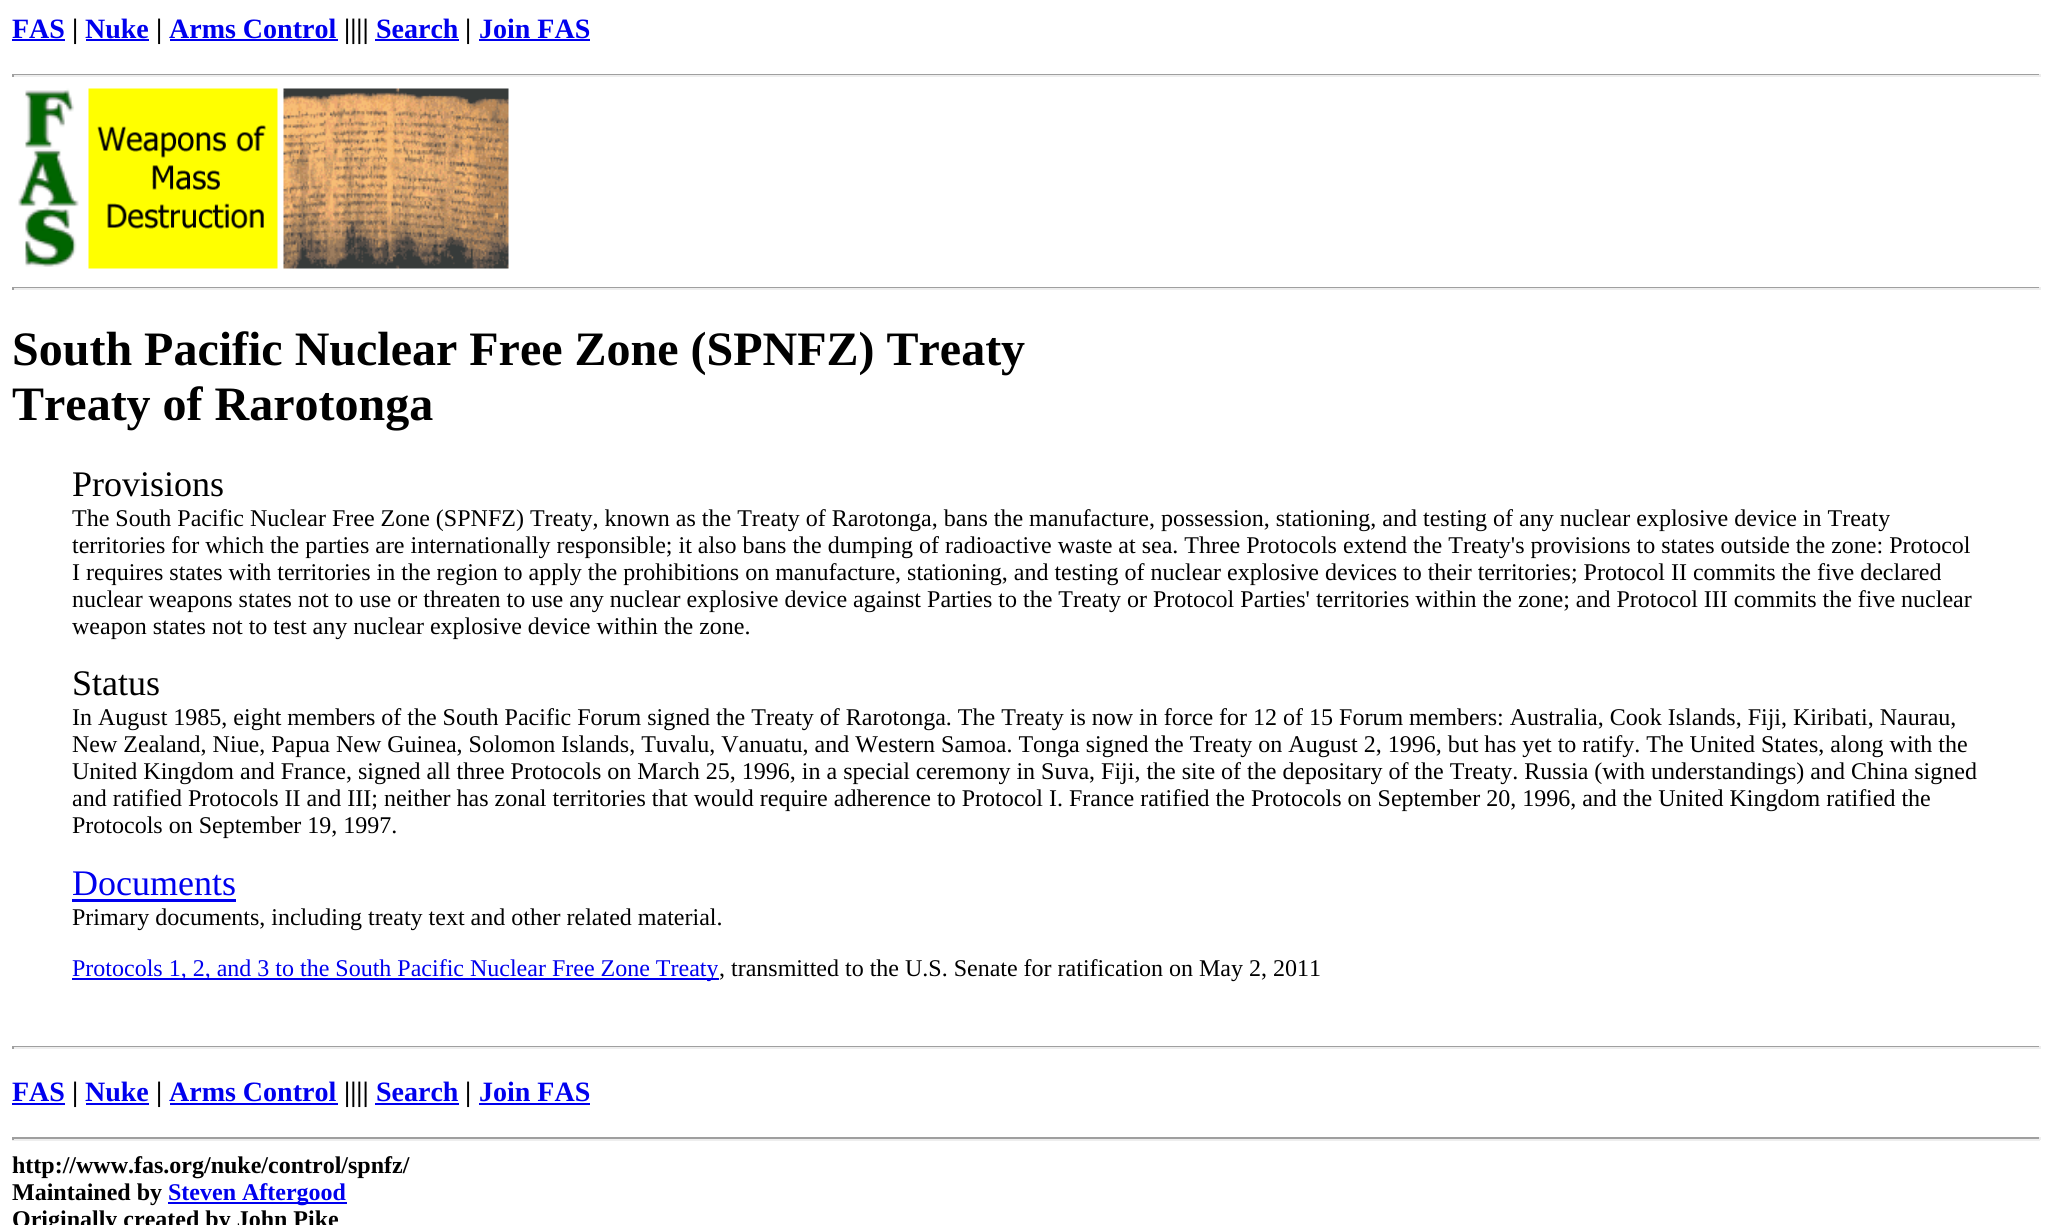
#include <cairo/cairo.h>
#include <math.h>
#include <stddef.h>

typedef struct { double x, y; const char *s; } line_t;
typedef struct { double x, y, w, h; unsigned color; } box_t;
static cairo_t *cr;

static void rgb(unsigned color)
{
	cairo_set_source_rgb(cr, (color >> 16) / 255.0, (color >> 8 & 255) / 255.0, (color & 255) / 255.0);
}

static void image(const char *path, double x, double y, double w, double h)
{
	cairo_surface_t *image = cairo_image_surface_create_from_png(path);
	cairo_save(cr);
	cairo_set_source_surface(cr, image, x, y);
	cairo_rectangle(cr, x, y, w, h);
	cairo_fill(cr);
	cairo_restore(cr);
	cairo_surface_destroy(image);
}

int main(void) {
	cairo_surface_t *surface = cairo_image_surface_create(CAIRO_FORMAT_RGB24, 2052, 1225);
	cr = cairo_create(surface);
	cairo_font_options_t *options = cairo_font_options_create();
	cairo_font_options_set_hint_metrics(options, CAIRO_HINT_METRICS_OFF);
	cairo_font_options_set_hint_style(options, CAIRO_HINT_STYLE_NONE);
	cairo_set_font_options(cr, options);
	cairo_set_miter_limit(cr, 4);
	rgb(0xffffff);
	cairo_paint(cr);
	{
		static const box_t items[] = {
			{12, 39, 53, 2, 0x0000ee},
			{86, 39, 63, 2, 0x0000ee},
			{170, 39, 168, 2, 0x0000ee},
			{375, 39, 84, 2, 0x0000ee},
			{479, 39, 111, 2, 0x0000ee},
			{12, 74, 2028, 1, 0x9f9f9f},
			{2039, 74, 2, 3, 0xeeeeee},
			{12, 75, 2028, 2, 0xeeeeee},
			{12, 74, 2, 3, 0x9f9f9f},
		};
		for (size_t i = 0; i < sizeof items / sizeof *items; i++) {
			rgb(items[i].color);
			cairo_rectangle(cr, items[i].x, items[i].y, items[i].w, items[i].h);
			cairo_fill(cr);
		}
	}
	image("img/1.png", 18, 88, 61, 179);
	image("img/2.png", 88, 88, 190, 181);
	image("img/3.png", 283, 88, 226, 181);
	{
		static const box_t items[] = {
			{12, 287, 2028, 1, 0x9f9f9f},
			{2039, 287, 2, 3, 0xeeeeee},
			{12, 288, 2028, 2, 0xeeeeee},
			{12, 287, 2, 3, 0x9f9f9f},
			{72, 899, 164, 3, 0x0000ee},
			{72, 978, 647, 2, 0x0000ee},
			{12, 1046, 2028, 1, 0x9f9f9f},
			{2039, 1046, 2, 3, 0xeeeeee},
			{12, 1047, 2028, 2, 0xeeeeee},
			{12, 1046, 2, 3, 0x9f9f9f},
			{12, 1103, 53, 2, 0x0000ee},
			{86, 1103, 63, 2, 0x0000ee},
			{170, 1103, 168, 2, 0x0000ee},
			{375, 1103, 84, 2, 0x0000ee},
			{479, 1103, 111, 2, 0x0000ee},
			{12, 1137, 2028, 2, 0x9f9f9f},
			{2039, 1137, 2, 3, 0xeeeeee},
			{12, 1139, 2028, 2, 0xeeeeee},
			{12, 1137, 2, 3, 0x9f9f9f},
			{168, 1202, 179, 2, 0x0000ee},
		};
		for (size_t i = 0; i < sizeof items / sizeof *items; i++) {
			rgb(items[i].color);
			cairo_rectangle(cr, items[i].x, items[i].y, items[i].w, items[i].h);
			cairo_fill(cr);
		}
	}
	cairo_select_font_face(cr, "Liberation Serif", CAIRO_FONT_SLANT_NORMAL, CAIRO_FONT_WEIGHT_BOLD);
	cairo_set_font_size(cr, 28);
	cairo_move_to(cr, 12, 38);
	cairo_show_text(cr, "FAS");
	rgb(0x000000);
	cairo_move_to(cr, 72, 38);
	cairo_show_text(cr, "|");
	rgb(0x0000ee);
	cairo_move_to(cr, 85, 38);
	cairo_show_text(cr, "Nuke");
	rgb(0x000000);
	cairo_move_to(cr, 156, 38);
	cairo_show_text(cr, "|");
	rgb(0x0000ee);
	cairo_move_to(cr, 169, 38);
	cairo_show_text(cr, "Arms Control");
	rgb(0x000000);
	cairo_move_to(cr, 344, 38);
	cairo_show_text(cr, "||||");
	rgb(0x0000ee);
	cairo_move_to(cr, 376, 38);
	cairo_show_text(cr, "Search");
	rgb(0x000000);
	cairo_move_to(cr, 465, 38);
	cairo_show_text(cr, "|");
	rgb(0x0000ee);
	cairo_move_to(cr, 479, 38);
	cairo_show_text(cr, "Join FAS");
	cairo_set_font_size(cr, 48);
	rgb(0x000000);
	cairo_move_to(cr, 12, 365);
	cairo_show_text(cr, "South Pacific Nuclear Free Zone (SPNFZ) Treaty");
	cairo_move_to(cr, 12, 420);
	cairo_show_text(cr, "Treaty of Rarotonga");
	cairo_select_font_face(cr, "Liberation Serif", CAIRO_FONT_SLANT_NORMAL, CAIRO_FONT_WEIGHT_NORMAL);
	cairo_set_font_size(cr, 36);
	cairo_move_to(cr, 72, 496);
	cairo_show_text(cr, "Provisions");
	cairo_set_font_size(cr, 24);
	{
		static const line_t items[] = {
			{72, 526, "The South Pacific Nuclear Free Zone (SPNFZ) Treaty, known as the Treaty of Rarotonga, bans the manufacture, possession, stationing, and testing of any nuclear explosive device in Treaty"},
			{72, 553, "territories for which the parties are internationally responsible; it also bans the dumping of radioactive waste at sea. Three Protocols extend the Treaty's provisions to states outside the zone: Protocol"},
			{72, 580, "I requires states with territories in the region to apply the prohibitions on manufacture, stationing, and testing of nuclear explosive devices to their territories; Protocol II commits the five declared"},
			{72, 607, "nuclear weapons states not to use or threaten to use any nuclear explosive device against Parties to the Treaty or Protocol Parties' territories within the zone; and Protocol III commits the five nuclear"},
			{72, 634, "weapon states not to test any nuclear explosive device within the zone."},
		};
		for (size_t i = 0; i < sizeof items / sizeof *items; i++) {
			cairo_move_to(cr, items[i].x, items[i].y);
			cairo_show_text(cr, items[i].s);
		}
	}
	cairo_set_font_size(cr, 36);
	cairo_move_to(cr, 72, 695);
	cairo_show_text(cr, "Status");
	cairo_set_font_size(cr, 24);
	{
		static const line_t items[] = {
			{72, 725, "In August 1985, eight members of the South Pacific Forum signed the Treaty of Rarotonga. The Treaty is now in force for 12 of 15 Forum members: Australia, Cook Islands, Fiji, Kiribati, Naurau,"},
			{72, 752, "New Zealand, Niue, Papua New Guinea, Solomon Islands, Tuvalu, Vanuatu, and Western Samoa. Tonga signed the Treaty on August 2, 1996, but has yet to ratify. The United States, along with the"},
			{72, 779, "United Kingdom and France, signed all three Protocols on March 25, 1996, in a special ceremony in Suva, Fiji, the site of the depositary of the Treaty. Russia (with understandings) and China signed"},
			{72, 806, "and ratified Protocols II and III; neither has zonal territories that would require adherence to Protocol I. France ratified the Protocols on September 20, 1996, and the United Kingdom ratified the"},
			{72, 833, "Protocols on September 19, 1997."},
		};
		for (size_t i = 0; i < sizeof items / sizeof *items; i++) {
			cairo_move_to(cr, items[i].x, items[i].y);
			cairo_show_text(cr, items[i].s);
		}
	}
	cairo_set_font_size(cr, 36);
	rgb(0x0000ee);
	cairo_move_to(cr, 72, 895);
	cairo_show_text(cr, "Documents");
	cairo_set_font_size(cr, 24);
	rgb(0x000000);
	cairo_move_to(cr, 72, 925);
	cairo_show_text(cr, "Primary documents, including treaty text and other related material.");
	rgb(0x0000ee);
	cairo_move_to(cr, 72, 976);
	cairo_show_text(cr, "Protocols 1, 2, and 3 to the South Pacific Nuclear Free Zone Treaty");
	rgb(0x000000);
	cairo_move_to(cr, 719, 976);
	cairo_show_text(cr, ", transmitted to the U.S. Senate for ratification on May 2, 2011");
	cairo_select_font_face(cr, "Liberation Serif", CAIRO_FONT_SLANT_NORMAL, CAIRO_FONT_WEIGHT_BOLD);
	cairo_set_font_size(cr, 28);
	rgb(0x0000ee);
	cairo_move_to(cr, 12, 1101);
	cairo_show_text(cr, "FAS");
	rgb(0x000000);
	cairo_move_to(cr, 72, 1101);
	cairo_show_text(cr, "|");
	rgb(0x0000ee);
	cairo_move_to(cr, 85, 1101);
	cairo_show_text(cr, "Nuke");
	rgb(0x000000);
	cairo_move_to(cr, 156, 1101);
	cairo_show_text(cr, "|");
	rgb(0x0000ee);
	cairo_move_to(cr, 169, 1101);
	cairo_show_text(cr, "Arms Control");
	rgb(0x000000);
	cairo_move_to(cr, 344, 1101);
	cairo_show_text(cr, "||||");
	rgb(0x0000ee);
	cairo_move_to(cr, 376, 1101);
	cairo_show_text(cr, "Search");
	rgb(0x000000);
	cairo_move_to(cr, 465, 1101);
	cairo_show_text(cr, "|");
	rgb(0x0000ee);
	cairo_move_to(cr, 479, 1101);
	cairo_show_text(cr, "Join FAS");
	cairo_set_font_size(cr, 24);
	rgb(0x000000);
	cairo_move_to(cr, 12, 1173);
	cairo_show_text(cr, "http://www.fas.org/nuke/control/spnfz/");
	cairo_move_to(cr, 12, 1200);
	cairo_show_text(cr, "Maintained by");
	rgb(0x0000ee);
	cairo_move_to(cr, 168, 1200);
	cairo_show_text(cr, "Steven Aftergood");
	rgb(0x000000);
	cairo_move_to(cr, 12, 1227);
	cairo_show_text(cr, "Originally created by John Pike");
	cairo_surface_write_to_png(surface, "page.png");
	cairo_font_options_destroy(options);
	cairo_destroy(cr);
	cairo_surface_destroy(surface);
	return 0;
}
